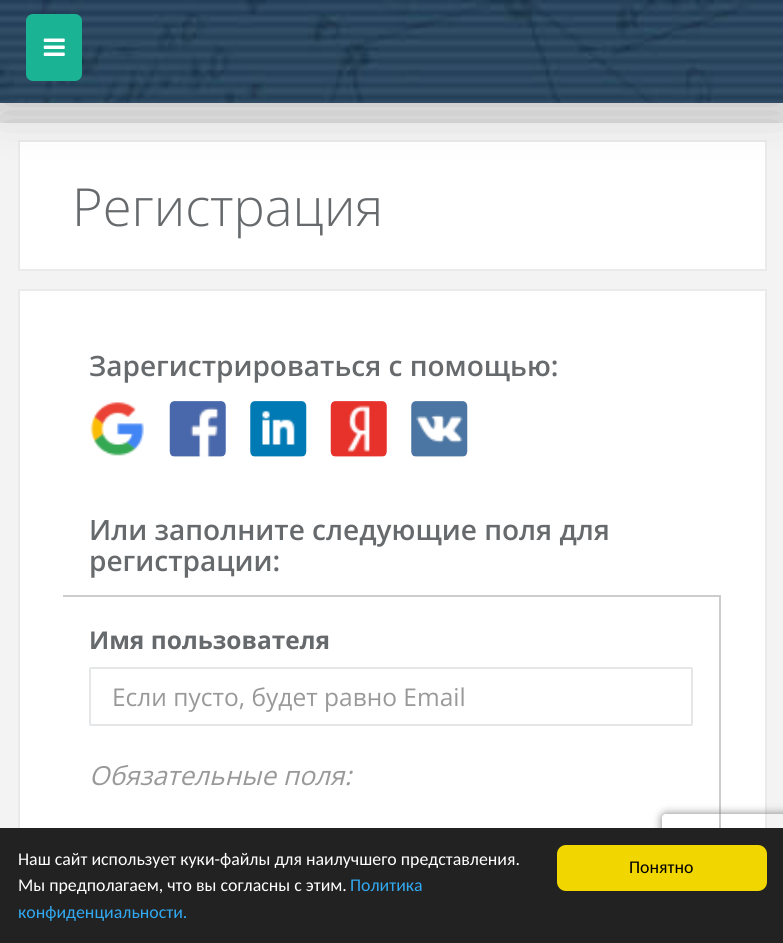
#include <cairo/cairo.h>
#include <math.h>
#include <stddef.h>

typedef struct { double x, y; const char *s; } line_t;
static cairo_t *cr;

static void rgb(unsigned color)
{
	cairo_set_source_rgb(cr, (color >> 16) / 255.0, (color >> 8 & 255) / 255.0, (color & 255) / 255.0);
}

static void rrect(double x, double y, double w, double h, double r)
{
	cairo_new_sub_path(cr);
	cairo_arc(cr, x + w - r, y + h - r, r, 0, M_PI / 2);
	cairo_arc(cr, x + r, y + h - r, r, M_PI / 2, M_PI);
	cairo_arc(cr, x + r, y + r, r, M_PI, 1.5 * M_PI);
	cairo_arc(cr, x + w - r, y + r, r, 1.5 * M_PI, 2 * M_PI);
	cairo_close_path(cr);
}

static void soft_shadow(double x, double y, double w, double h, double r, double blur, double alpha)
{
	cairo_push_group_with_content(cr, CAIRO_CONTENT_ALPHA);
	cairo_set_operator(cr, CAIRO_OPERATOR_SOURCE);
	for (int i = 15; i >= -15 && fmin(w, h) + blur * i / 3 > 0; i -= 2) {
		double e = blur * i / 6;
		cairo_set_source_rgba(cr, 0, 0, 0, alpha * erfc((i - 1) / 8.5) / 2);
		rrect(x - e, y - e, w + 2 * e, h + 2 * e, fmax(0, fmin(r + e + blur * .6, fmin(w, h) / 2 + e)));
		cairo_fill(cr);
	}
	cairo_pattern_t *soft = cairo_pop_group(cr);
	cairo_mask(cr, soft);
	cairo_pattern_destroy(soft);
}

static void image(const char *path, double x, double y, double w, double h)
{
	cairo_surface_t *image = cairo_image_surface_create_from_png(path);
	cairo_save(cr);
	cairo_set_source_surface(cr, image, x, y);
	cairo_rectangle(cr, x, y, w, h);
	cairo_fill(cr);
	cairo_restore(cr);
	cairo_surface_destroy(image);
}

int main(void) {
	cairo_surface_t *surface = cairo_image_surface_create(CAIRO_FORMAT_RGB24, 783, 943);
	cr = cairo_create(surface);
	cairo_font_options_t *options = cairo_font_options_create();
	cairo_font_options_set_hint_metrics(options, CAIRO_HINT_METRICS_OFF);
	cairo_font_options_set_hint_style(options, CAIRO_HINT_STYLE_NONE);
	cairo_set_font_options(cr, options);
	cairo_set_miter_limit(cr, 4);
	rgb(0xf3f3f4);
	cairo_paint(cr);
	cairo_save(cr);
	cairo_rectangle(cr, 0, 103, 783, 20);
	cairo_clip(cr);
	rgb(0x000000);
	soft_shadow(0, 123, 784, 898, 0, 26, 0.2);
	cairo_restore(cr);
	rgb(0xffffff);
	cairo_rectangle(cr, 19, 141, 747, 129);
	cairo_fill_preserve(cr);
	rgb(0xeaeaea);
	cairo_stroke(cr);
	rgb(0x000000);
	soft_shadow(0, 0, 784, 103, 0, 26, 0.2);
	image("img/1.png", 0, 0, 783, 103);
	rgb(0x1ab394);
	rrect(26, 14, 56, 67, 7);
	cairo_fill(cr);
	image("img/2.png", 43, 38, 22, 18);
	rgb(0xffffff);
	cairo_rectangle(cr, 20, 291, 745, 537);
	cairo_fill(cr);
	cairo_rectangle(cr, 19, 290, 747, 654);
	rgb(0xeaeaea);
	cairo_stroke(cr);
	image("img/3.png", 90, 402, 54, 54);
	image("img/4.png", 169, 401, 57, 56);
	image("img/5.png", 250, 401, 57, 56);
	image("img/6.png", 330, 401, 57, 56);
	image("img/7.png", 411, 401, 57, 56);
	rgb(0xcccccc);
	cairo_rectangle(cr, 63, 595, 658, 2);
	cairo_fill(cr);
	cairo_rectangle(cr, 719, 595, 2, 233);
	cairo_fill(cr);
	rrect(90, 668, 602, 57, 1);
	rgb(0xe5e6e7);
	cairo_stroke(cr);
	cairo_save(cr);
	cairo_set_fill_rule(cr, CAIRO_FILL_RULE_EVEN_ODD);
	cairo_new_path(cr);
	cairo_move_to(cr, 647, 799);
	cairo_line_to(cr, 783, 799);
	cairo_line_to(cr, 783, 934);
	cairo_line_to(cr, 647, 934);
	cairo_close_path(cr);
	cairo_move_to(cr, 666, 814);
	cairo_line_to(cr, 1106, 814);
	cairo_curve_to(cr, 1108, 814, 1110, 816, 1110, 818);
	cairo_line_to(cr, 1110, 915);
	cairo_curve_to(cr, 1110, 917, 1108, 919, 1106, 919);
	cairo_line_to(cr, 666, 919);
	cairo_curve_to(cr, 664, 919, 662, 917, 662, 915);
	cairo_line_to(cr, 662, 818);
	cairo_curve_to(cr, 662, 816, 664, 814, 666, 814);
	cairo_close_path(cr);
	cairo_clip(cr);
	rgb(0x808080);
	soft_shadow(662, 814, 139, 105, 4, 4.5, 1);
	cairo_restore(cr);
	rgb(0x222222);
	cairo_rectangle(cr, 0, 828, 783, 115);
	cairo_fill(cr);
	rgb(0xf1d600);
	rrect(557, 845, 210, 46, 9);
	cairo_fill(cr);
	cairo_select_font_face(cr, "Open Sans Light", CAIRO_FONT_SLANT_NORMAL, CAIRO_FONT_WEIGHT_NORMAL);
	cairo_set_font_size(cr, 52.5);
	rgb(0x676a6c);
	cairo_move_to(cr, 72, 226);
	cairo_show_text(cr, "Регистрация");
	cairo_select_font_face(cr, "Open Sans SemiBold", CAIRO_FONT_SLANT_NORMAL, CAIRO_FONT_WEIGHT_NORMAL);
	cairo_set_font_size(cr, 28);
	{
		static const line_t items[] = {
			{89, 376, "Зарегистрироваться с помощью:"},
			{89, 540, "Или заполните следующие поля для"},
			{89, 571, "регистрации:"},
		};
		for (size_t i = 0; i < sizeof items / sizeof *items; i++) {
			cairo_move_to(cr, items[i].x, items[i].y);
			cairo_show_text(cr, items[i].s);
		}
	}
	cairo_select_font_face(cr, "Open Sans", CAIRO_FONT_SLANT_NORMAL, CAIRO_FONT_WEIGHT_BOLD);
	cairo_set_font_size(cr, 24.5);
	cairo_move_to(cr, 89, 649);
	cairo_show_text(cr, "Имя пользователя");
	cairo_select_font_face(cr, "Open Sans", CAIRO_FONT_SLANT_NORMAL, CAIRO_FONT_WEIGHT_NORMAL);
	rgb(0x999999);
	cairo_move_to(cr, 112, 706);
	cairo_show_text(cr, "Если пусто, будет равно Email");
	cairo_select_font_face(cr, "Open Sans", CAIRO_FONT_SLANT_ITALIC, CAIRO_FONT_WEIGHT_NORMAL);
	cairo_set_font_size(cr, 26.25);
	cairo_move_to(cr, 89, 785);
	cairo_show_text(cr, "Обязательные поля:");
	cairo_select_font_face(cr, "Carlito", CAIRO_FONT_SLANT_NORMAL, CAIRO_FONT_WEIGHT_NORMAL);
	cairo_set_font_size(cr, 17.85);
	rgb(0xffffff);
	cairo_move_to(cr, 18, 865);
	cairo_show_text(cr, "Наш сайт использует куки-файлы для наилучшего представления.");
	cairo_move_to(cr, 18, 891);
	cairo_show_text(cr, "Мы предполагаем, что вы согласны с этим.");
	rgb(0x31a8f0);
	cairo_move_to(cr, 350, 891);
	cairo_show_text(cr, "Политика");
	cairo_move_to(cr, 18, 918);
	cairo_show_text(cr, "конфиденциальности.");
	rgb(0x000000);
	cairo_move_to(cr, 629, 873);
	cairo_show_text(cr, "Понятно");
	cairo_surface_write_to_png(surface, "page.png");
	cairo_font_options_destroy(options);
	cairo_destroy(cr);
	cairo_surface_destroy(surface);
	return 0;
}
